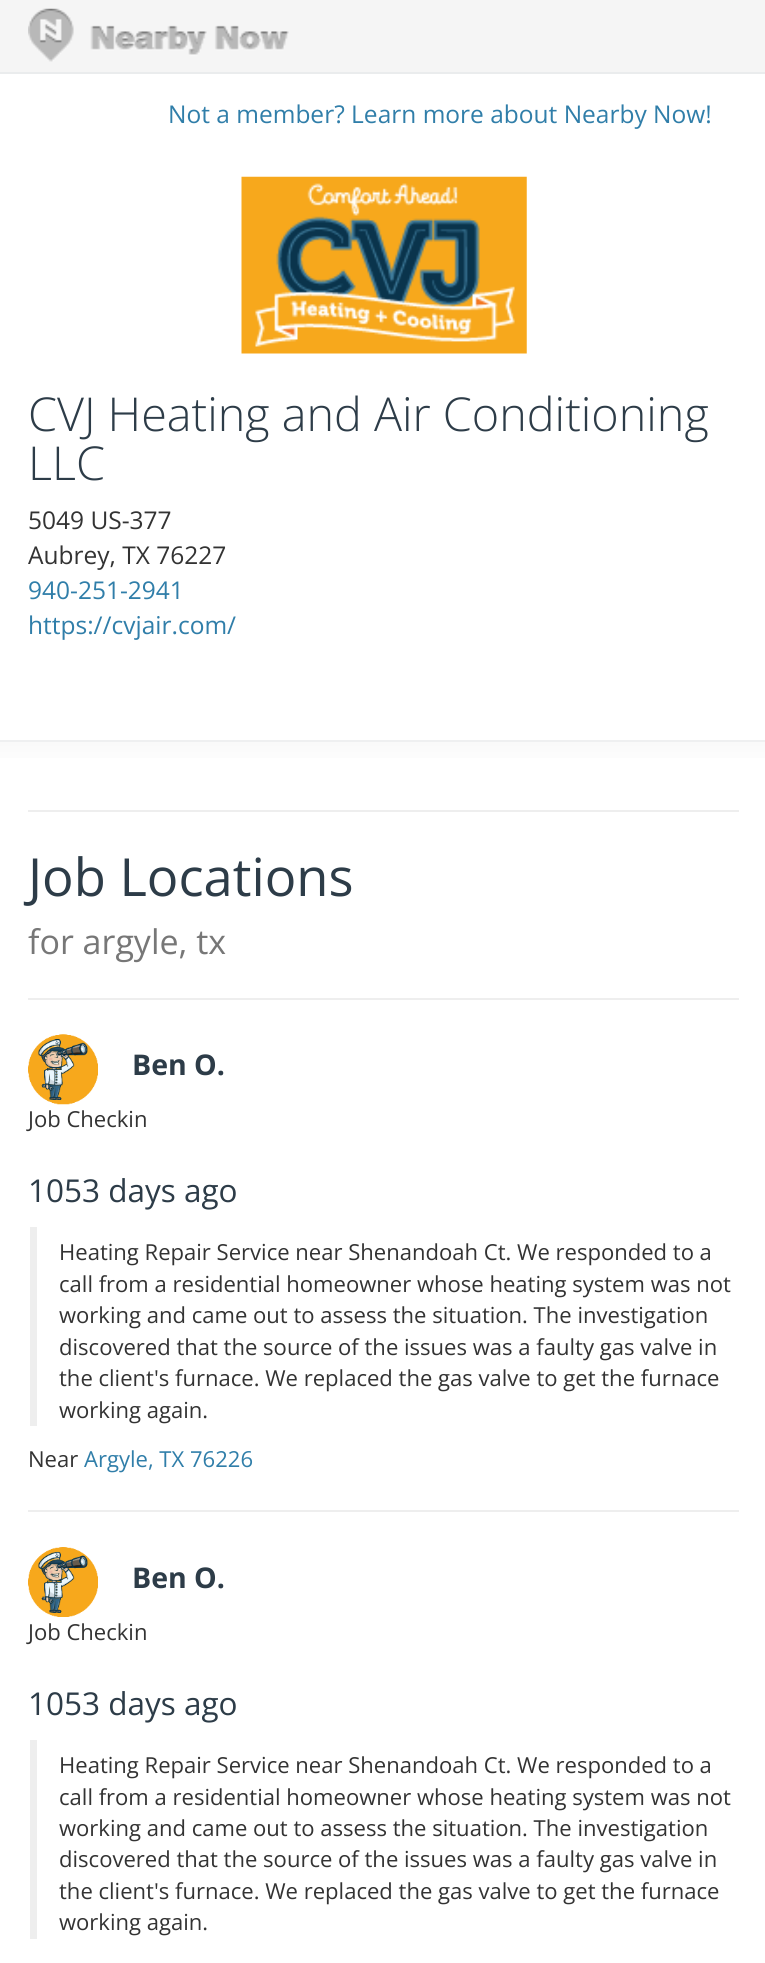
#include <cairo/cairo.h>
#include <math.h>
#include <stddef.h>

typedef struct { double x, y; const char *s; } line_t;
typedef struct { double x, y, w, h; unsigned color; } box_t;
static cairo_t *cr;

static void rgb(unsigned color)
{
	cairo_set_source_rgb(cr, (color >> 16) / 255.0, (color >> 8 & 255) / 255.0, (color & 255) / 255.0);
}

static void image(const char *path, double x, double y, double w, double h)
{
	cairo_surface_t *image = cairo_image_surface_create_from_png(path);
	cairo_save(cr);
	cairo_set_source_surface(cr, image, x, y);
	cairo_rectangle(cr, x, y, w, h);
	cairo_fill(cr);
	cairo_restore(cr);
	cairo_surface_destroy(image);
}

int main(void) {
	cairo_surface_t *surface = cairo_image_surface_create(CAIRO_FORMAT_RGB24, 765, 1963);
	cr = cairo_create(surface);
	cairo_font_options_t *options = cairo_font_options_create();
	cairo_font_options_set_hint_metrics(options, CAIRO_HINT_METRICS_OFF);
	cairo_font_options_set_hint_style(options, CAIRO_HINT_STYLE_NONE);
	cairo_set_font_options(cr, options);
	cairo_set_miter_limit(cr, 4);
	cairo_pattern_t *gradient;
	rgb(0xffffff);
	cairo_paint(cr);
	rgb(0xeaeced);
	cairo_new_path(cr);
	cairo_move_to(cr, 0, 72);
	cairo_line_to(cr, 0, 74);
	cairo_line_to(cr, 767, 74);
	cairo_line_to(cr, 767, 2);
	cairo_line_to(cr, 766, 2);
	cairo_line_to(cr, 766, 72);
	cairo_close_path(cr);
	cairo_fill(cr);
	rgb(0xf5f5f5);
	cairo_rectangle(cr, 0, 0, 765, 72);
	cairo_fill(cr);
	image("img/1.png", 28, 8, 261, 54);
	image("img/2.png", 241, 176, 286, 178);
	gradient = cairo_pattern_create_linear(383, 742, 383, 775);
	cairo_pattern_add_color_stop_rgba(gradient, 0, 0.98, 0.98, 0.98, 1);
	cairo_pattern_add_color_stop_rgba(gradient, 1, 1, 1, 1, 1);
	cairo_set_source(cr, gradient);
	cairo_pattern_destroy(gradient);
	cairo_rectangle(cr, 0, 742, 765, 16);
	cairo_fill(cr);
	{
		static const box_t items[] = {
			{0, 740, 765, 2, 0xeff0f1},
			{28, 810, 711, 2, 0xeeeeee},
			{28, 998, 711, 2, 0xeeeeee},
		};
		for (size_t i = 0; i < sizeof items / sizeof *items; i++) {
			rgb(items[i].color);
			cairo_rectangle(cr, items[i].x, items[i].y, items[i].w, items[i].h);
			cairo_fill(cr);
		}
	}
	image("img/3.png", 28, 1034, 70, 71);
	cairo_rectangle(cr, 30, 1227, 7, 199);
	cairo_fill(cr);
	cairo_rectangle(cr, 28, 1510, 711, 2);
	cairo_fill(cr);
	image("img/4.png", 28, 1547, 70, 70);
	cairo_rectangle(cr, 30, 1740, 7, 199);
	cairo_fill(cr);
	cairo_select_font_face(cr, "Open Sans", CAIRO_FONT_SLANT_NORMAL, CAIRO_FONT_WEIGHT_NORMAL);
	cairo_set_font_size(cr, 24.5);
	rgb(0x307ea9);
	cairo_move_to(cr, 168, 123);
	cairo_show_text(cr, "Not a member? Learn more about Nearby Now!");
	cairo_select_font_face(cr, "Open Sans Light", CAIRO_FONT_SLANT_NORMAL, CAIRO_FONT_WEIGHT_NORMAL);
	cairo_set_font_size(cr, 46.7);
	rgb(0x2d3c48);
	cairo_move_to(cr, 28, 431);
	cairo_show_text(cr, "CVJ Heating and Air Conditioning");
	cairo_move_to(cr, 28, 480);
	cairo_show_text(cr, "LLC");
	cairo_select_font_face(cr, "Open Sans", CAIRO_FONT_SLANT_NORMAL, CAIRO_FONT_WEIGHT_NORMAL);
	cairo_set_font_size(cr, 24.5);
	rgb(0x333333);
	cairo_move_to(cr, 28, 529);
	cairo_show_text(cr, "5049 US-377");
	cairo_move_to(cr, 28, 564);
	cairo_show_text(cr, "Aubrey, TX 76227");
	rgb(0x307ea9);
	cairo_move_to(cr, 28, 599);
	cairo_show_text(cr, "940-251-2941");
	cairo_move_to(cr, 28, 634);
	cairo_show_text(cr, "https://cvjair.com/");
	cairo_set_font_size(cr, 52.5);
	rgb(0x2d3c48);
	cairo_move_to(cr, 28, 896);
	cairo_show_text(cr, "Job Locations");
	cairo_set_font_size(cr, 34);
	rgb(0x777777);
	cairo_move_to(cr, 28, 954);
	cairo_show_text(cr, "for argyle, tx");
	cairo_select_font_face(cr, "Open Sans", CAIRO_FONT_SLANT_NORMAL, CAIRO_FONT_WEIGHT_BOLD);
	cairo_set_font_size(cr, 28.5);
	rgb(0x2d3c48);
	cairo_move_to(cr, 132, 1075);
	cairo_show_text(cr, "Ben O.");
	cairo_select_font_face(cr, "Open Sans", CAIRO_FONT_SLANT_NORMAL, CAIRO_FONT_WEIGHT_NORMAL);
	cairo_set_font_size(cr, 22.05);
	rgb(0x333333);
	cairo_move_to(cr, 28, 1127);
	cairo_show_text(cr, "Job Checkin");
	cairo_set_font_size(cr, 31.5);
	rgb(0x2d3c48);
	cairo_move_to(cr, 28, 1202);
	cairo_show_text(cr, "1053 days ago");
	cairo_set_font_size(cr, 22.05);
	rgb(0x333333);
	{
		static const line_t items[] = {
			{59, 1260, "Heating Repair Service near Shenandoah Ct. We responded to a"},
			{59, 1292, "call from a residential homeowner whose heating system was not"},
			{59, 1323, "working and came out to assess the situation. The investigation"},
			{59, 1355, "discovered that the source of the issues was a faulty gas valve in"},
			{59, 1386, "the client's furnace. We replaced the gas valve to get the furnace"},
			{59, 1418, "working again."},
			{28, 1467, "Near"},
		};
		for (size_t i = 0; i < sizeof items / sizeof *items; i++) {
			cairo_move_to(cr, items[i].x, items[i].y);
			cairo_show_text(cr, items[i].s);
		}
	}
	rgb(0x307ea9);
	cairo_move_to(cr, 84, 1467);
	cairo_show_text(cr, "Argyle, TX 76226");
	cairo_select_font_face(cr, "Open Sans", CAIRO_FONT_SLANT_NORMAL, CAIRO_FONT_WEIGHT_BOLD);
	cairo_set_font_size(cr, 28.5);
	rgb(0x2d3c48);
	cairo_move_to(cr, 132, 1588);
	cairo_show_text(cr, "Ben O.");
	cairo_select_font_face(cr, "Open Sans", CAIRO_FONT_SLANT_NORMAL, CAIRO_FONT_WEIGHT_NORMAL);
	cairo_set_font_size(cr, 22.05);
	rgb(0x333333);
	cairo_move_to(cr, 28, 1640);
	cairo_show_text(cr, "Job Checkin");
	cairo_set_font_size(cr, 31.5);
	rgb(0x2d3c48);
	cairo_move_to(cr, 28, 1715);
	cairo_show_text(cr, "1053 days ago");
	cairo_set_font_size(cr, 22.05);
	rgb(0x333333);
	{
		static const line_t items[] = {
			{59, 1773, "Heating Repair Service near Shenandoah Ct. We responded to a"},
			{59, 1805, "call from a residential homeowner whose heating system was not"},
			{59, 1836, "working and came out to assess the situation. The investigation"},
			{59, 1867, "discovered that the source of the issues was a faulty gas valve in"},
			{59, 1899, "the client's furnace. We replaced the gas valve to get the furnace"},
			{59, 1930, "working again."},
		};
		for (size_t i = 0; i < sizeof items / sizeof *items; i++) {
			cairo_move_to(cr, items[i].x, items[i].y);
			cairo_show_text(cr, items[i].s);
		}
	}
	cairo_surface_write_to_png(surface, "page.png");
	cairo_font_options_destroy(options);
	cairo_destroy(cr);
	cairo_surface_destroy(surface);
	return 0;
}
